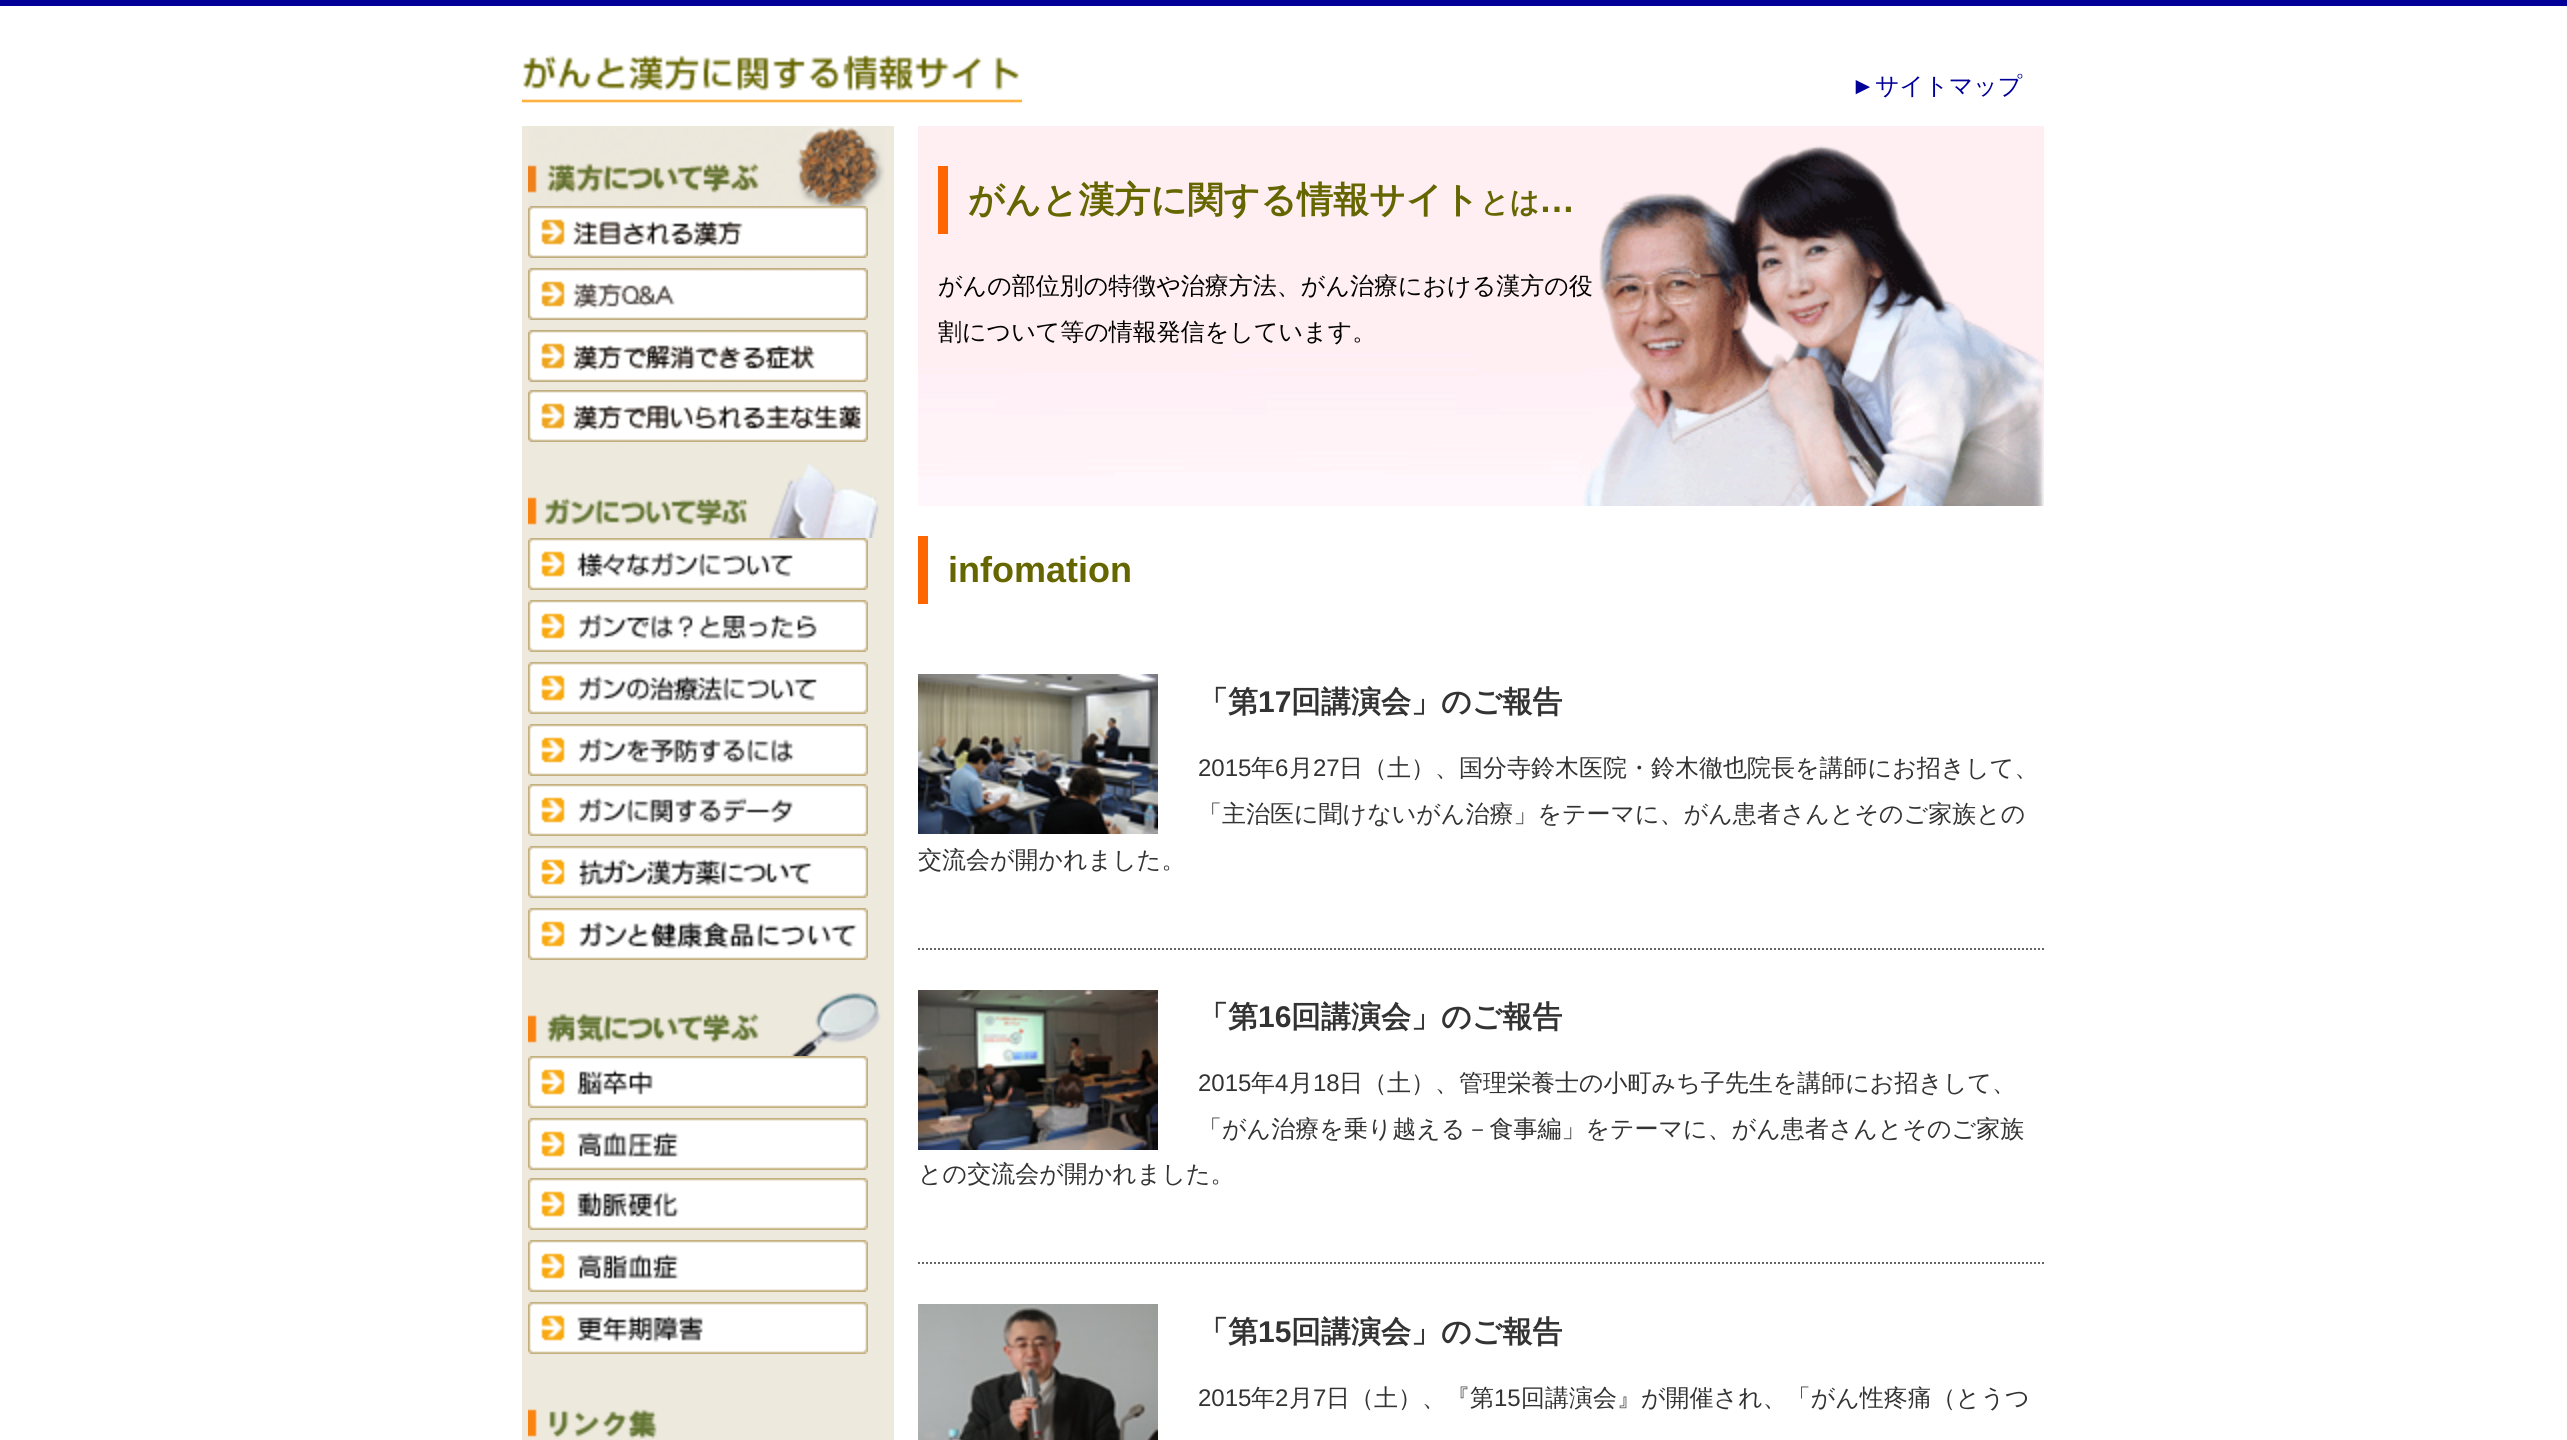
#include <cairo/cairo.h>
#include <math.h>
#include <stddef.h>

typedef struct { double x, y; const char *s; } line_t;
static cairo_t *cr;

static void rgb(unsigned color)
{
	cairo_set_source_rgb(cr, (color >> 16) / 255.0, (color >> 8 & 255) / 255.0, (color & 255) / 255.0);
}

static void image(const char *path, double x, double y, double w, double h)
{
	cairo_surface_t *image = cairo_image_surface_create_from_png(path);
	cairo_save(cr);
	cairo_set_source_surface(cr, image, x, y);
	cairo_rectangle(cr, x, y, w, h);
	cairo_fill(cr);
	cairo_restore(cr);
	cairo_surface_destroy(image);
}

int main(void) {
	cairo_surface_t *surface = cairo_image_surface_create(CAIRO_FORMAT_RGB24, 2567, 1440);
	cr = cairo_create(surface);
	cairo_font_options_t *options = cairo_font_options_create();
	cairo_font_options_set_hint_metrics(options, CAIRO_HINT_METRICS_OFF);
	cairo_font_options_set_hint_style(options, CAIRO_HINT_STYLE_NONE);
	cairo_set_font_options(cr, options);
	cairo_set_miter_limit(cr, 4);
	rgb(0xffffff);
	cairo_paint(cr);
	rgb(0x000099);
	cairo_rectangle(cr, 0, 0, 2567, 6);
	cairo_fill(cr);
	image("img/1.png", 522, 55, 500, 48);
	rgb(0xede9dd);
	cairo_rectangle(cr, 522, 126, 372, 1314);
	cairo_fill(cr);
	image("img/2.png", 528, 126, 357, 80);
	image("img/3.png", 528, 206, 340, 52);
	image("img/4.png", 528, 268, 340, 52);
	image("img/5.png", 528, 330, 340, 52);
	image("img/6.png", 528, 390, 340, 52);
	image("img/7.png", 528, 463, 351, 75);
	image("img/8.png", 528, 538, 340, 52);
	image("img/9.png", 528, 600, 340, 52);
	image("img/10.png", 528, 662, 340, 52);
	image("img/11.png", 528, 724, 340, 52);
	image("img/12.png", 528, 784, 340, 52);
	image("img/13.png", 528, 846, 340, 52);
	image("img/14.png", 528, 908, 340, 52);
	image("img/15.png", 528, 992, 353, 64);
	image("img/16.png", 528, 1056, 340, 52);
	image("img/17.png", 528, 1118, 340, 52);
	image("img/18.png", 528, 1178, 340, 52);
	image("img/19.png", 528, 1240, 340, 52);
	image("img/20.png", 528, 1302, 340, 52);
	image("img/21.png", 528, 1409, 129, 30);
	image("img/22.png", 918, 126, 1126, 380);
	rgb(0xff6600);
	cairo_rectangle(cr, 938, 166, 10, 68);
	cairo_fill(cr);
	cairo_rectangle(cr, 918, 536, 10, 68);
	cairo_fill(cr);
	cairo_new_path(cr);
	cairo_move_to(cr, 918, 949);
	cairo_line_to(cr, 2046, 949);
	rgb(0x666666);
	cairo_set_dash(cr, (double[]){2, 2}, 2, 0);
	cairo_stroke(cr);
	image("img/23.png", 918, 674, 240, 160);
	cairo_new_path(cr);
	cairo_move_to(cr, 918, 1263);
	cairo_line_to(cr, 2046, 1263);
	cairo_stroke(cr);
	image("img/24.png", 918, 990, 240, 160);
	image("img/25.png", 918, 1304, 240, 136);
	cairo_select_font_face(cr, "Liberation Sans", CAIRO_FONT_SLANT_NORMAL, CAIRO_FONT_WEIGHT_NORMAL);
	cairo_set_font_size(cr, 24);
	rgb(0x000099);
	cairo_move_to(cr, 1851, 94);
	cairo_show_text(cr, "►");
	cairo_select_font_face(cr, "WenQuanYi Zen Hei Medium", CAIRO_FONT_SLANT_NORMAL, CAIRO_FONT_WEIGHT_NORMAL);
	cairo_move_to(cr, 1875, 94);
	cairo_show_text(cr, "サイトマップ");
	cairo_select_font_face(cr, "WenQuanYi Zen Hei", CAIRO_FONT_SLANT_NORMAL, CAIRO_FONT_WEIGHT_BOLD);
	cairo_set_font_size(cr, 36);
	rgb(0x666600);
	cairo_move_to(cr, 968, 212);
	cairo_show_text(cr, "がんと漢方に関する情報サイト");
	cairo_set_font_size(cr, 29);
	cairo_move_to(cr, 1480, 212);
	cairo_show_text(cr, "とは");
	cairo_select_font_face(cr, "Liberation Sans", CAIRO_FONT_SLANT_NORMAL, CAIRO_FONT_WEIGHT_BOLD);
	cairo_set_font_size(cr, 36);
	cairo_move_to(cr, 1539, 212);
	cairo_show_text(cr, "…");
	cairo_select_font_face(cr, "WenQuanYi Zen Hei Medium", CAIRO_FONT_SLANT_NORMAL, CAIRO_FONT_WEIGHT_NORMAL);
	cairo_set_font_size(cr, 24);
	rgb(0x000000);
	cairo_move_to(cr, 938, 294);
	cairo_show_text(cr, "がんの部位別の特徴や治療方法、がん治療における漢方の役");
	cairo_move_to(cr, 938, 340);
	cairo_show_text(cr, "割について等の情報発信をしています。");
	cairo_select_font_face(cr, "Liberation Sans", CAIRO_FONT_SLANT_NORMAL, CAIRO_FONT_WEIGHT_BOLD);
	cairo_set_font_size(cr, 36);
	rgb(0x666600);
	cairo_move_to(cr, 948, 582);
	cairo_show_text(cr, "infomation");
	cairo_select_font_face(cr, "WenQuanYi Zen Hei", CAIRO_FONT_SLANT_NORMAL, CAIRO_FONT_WEIGHT_BOLD);
	cairo_set_font_size(cr, 30);
	rgb(0x333333);
	cairo_move_to(cr, 1198, 712);
	cairo_show_text(cr, "「第");
	cairo_select_font_face(cr, "Liberation Sans", CAIRO_FONT_SLANT_NORMAL, CAIRO_FONT_WEIGHT_BOLD);
	cairo_move_to(cr, 1258, 712);
	cairo_show_text(cr, "17");
	cairo_select_font_face(cr, "WenQuanYi Zen Hei", CAIRO_FONT_SLANT_NORMAL, CAIRO_FONT_WEIGHT_BOLD);
	cairo_move_to(cr, 1291, 712);
	cairo_show_text(cr, "回講演会」のご報告");
	cairo_select_font_face(cr, "Liberation Sans", CAIRO_FONT_SLANT_NORMAL, CAIRO_FONT_WEIGHT_NORMAL);
	cairo_set_font_size(cr, 24);
	cairo_move_to(cr, 1198, 776);
	cairo_show_text(cr, "2015");
	cairo_select_font_face(cr, "WenQuanYi Zen Hei Medium", CAIRO_FONT_SLANT_NORMAL, CAIRO_FONT_WEIGHT_NORMAL);
	cairo_move_to(cr, 1251, 776);
	cairo_show_text(cr, "年");
	cairo_select_font_face(cr, "Liberation Sans", CAIRO_FONT_SLANT_NORMAL, CAIRO_FONT_WEIGHT_NORMAL);
	cairo_move_to(cr, 1275, 776);
	cairo_show_text(cr, "6");
	cairo_select_font_face(cr, "WenQuanYi Zen Hei Medium", CAIRO_FONT_SLANT_NORMAL, CAIRO_FONT_WEIGHT_NORMAL);
	cairo_move_to(cr, 1289, 776);
	cairo_show_text(cr, "月");
	cairo_select_font_face(cr, "Liberation Sans", CAIRO_FONT_SLANT_NORMAL, CAIRO_FONT_WEIGHT_NORMAL);
	cairo_move_to(cr, 1313, 776);
	cairo_show_text(cr, "27");
	cairo_select_font_face(cr, "WenQuanYi Zen Hei Medium", CAIRO_FONT_SLANT_NORMAL, CAIRO_FONT_WEIGHT_NORMAL);
	{
		static const line_t items[] = {
			{1339, 776, "日（土）、国分寺鈴木医院・鈴木徹也院長を講師にお招きして、"},
			{1198, 822, "「主治医に聞けないがん治療」をテーマに、がん患者さんとそのご家族との"},
			{918, 868, "交流会が開かれました。"},
		};
		for (size_t i = 0; i < sizeof items / sizeof *items; i++) {
			cairo_move_to(cr, items[i].x, items[i].y);
			cairo_show_text(cr, items[i].s);
		}
	}
	cairo_select_font_face(cr, "WenQuanYi Zen Hei", CAIRO_FONT_SLANT_NORMAL, CAIRO_FONT_WEIGHT_BOLD);
	cairo_set_font_size(cr, 30);
	cairo_move_to(cr, 1198, 1027);
	cairo_show_text(cr, "「第");
	cairo_select_font_face(cr, "Liberation Sans", CAIRO_FONT_SLANT_NORMAL, CAIRO_FONT_WEIGHT_BOLD);
	cairo_move_to(cr, 1258, 1027);
	cairo_show_text(cr, "16");
	cairo_select_font_face(cr, "WenQuanYi Zen Hei", CAIRO_FONT_SLANT_NORMAL, CAIRO_FONT_WEIGHT_BOLD);
	cairo_move_to(cr, 1291, 1027);
	cairo_show_text(cr, "回講演会」のご報告");
	cairo_select_font_face(cr, "Liberation Sans", CAIRO_FONT_SLANT_NORMAL, CAIRO_FONT_WEIGHT_NORMAL);
	cairo_set_font_size(cr, 24);
	cairo_move_to(cr, 1198, 1091);
	cairo_show_text(cr, "2015");
	cairo_select_font_face(cr, "WenQuanYi Zen Hei Medium", CAIRO_FONT_SLANT_NORMAL, CAIRO_FONT_WEIGHT_NORMAL);
	cairo_move_to(cr, 1251, 1091);
	cairo_show_text(cr, "年");
	cairo_select_font_face(cr, "Liberation Sans", CAIRO_FONT_SLANT_NORMAL, CAIRO_FONT_WEIGHT_NORMAL);
	cairo_move_to(cr, 1275, 1091);
	cairo_show_text(cr, "4");
	cairo_select_font_face(cr, "WenQuanYi Zen Hei Medium", CAIRO_FONT_SLANT_NORMAL, CAIRO_FONT_WEIGHT_NORMAL);
	cairo_move_to(cr, 1289, 1091);
	cairo_show_text(cr, "月");
	cairo_select_font_face(cr, "Liberation Sans", CAIRO_FONT_SLANT_NORMAL, CAIRO_FONT_WEIGHT_NORMAL);
	cairo_move_to(cr, 1313, 1091);
	cairo_show_text(cr, "18");
	cairo_select_font_face(cr, "WenQuanYi Zen Hei Medium", CAIRO_FONT_SLANT_NORMAL, CAIRO_FONT_WEIGHT_NORMAL);
	{
		static const line_t items[] = {
			{1339, 1091, "日（土）、管理栄養士の小町みち子先生を講師にお招きして、"},
			{1198, 1137, "「がん治療を乗り越える－食事編」をテーマに、がん患者さんとそのご家族"},
			{918, 1182, "との交流会が開かれました。"},
		};
		for (size_t i = 0; i < sizeof items / sizeof *items; i++) {
			cairo_move_to(cr, items[i].x, items[i].y);
			cairo_show_text(cr, items[i].s);
		}
	}
	cairo_select_font_face(cr, "WenQuanYi Zen Hei", CAIRO_FONT_SLANT_NORMAL, CAIRO_FONT_WEIGHT_BOLD);
	cairo_set_font_size(cr, 30);
	cairo_move_to(cr, 1198, 1342);
	cairo_show_text(cr, "「第");
	cairo_select_font_face(cr, "Liberation Sans", CAIRO_FONT_SLANT_NORMAL, CAIRO_FONT_WEIGHT_BOLD);
	cairo_move_to(cr, 1258, 1342);
	cairo_show_text(cr, "15");
	cairo_select_font_face(cr, "WenQuanYi Zen Hei", CAIRO_FONT_SLANT_NORMAL, CAIRO_FONT_WEIGHT_BOLD);
	cairo_move_to(cr, 1291, 1342);
	cairo_show_text(cr, "回講演会」のご報告");
	cairo_select_font_face(cr, "Liberation Sans", CAIRO_FONT_SLANT_NORMAL, CAIRO_FONT_WEIGHT_NORMAL);
	cairo_set_font_size(cr, 24);
	cairo_move_to(cr, 1198, 1406);
	cairo_show_text(cr, "2015");
	cairo_select_font_face(cr, "WenQuanYi Zen Hei Medium", CAIRO_FONT_SLANT_NORMAL, CAIRO_FONT_WEIGHT_NORMAL);
	cairo_move_to(cr, 1251, 1406);
	cairo_show_text(cr, "年");
	cairo_select_font_face(cr, "Liberation Sans", CAIRO_FONT_SLANT_NORMAL, CAIRO_FONT_WEIGHT_NORMAL);
	cairo_move_to(cr, 1275, 1406);
	cairo_show_text(cr, "2");
	cairo_select_font_face(cr, "WenQuanYi Zen Hei Medium", CAIRO_FONT_SLANT_NORMAL, CAIRO_FONT_WEIGHT_NORMAL);
	cairo_move_to(cr, 1289, 1406);
	cairo_show_text(cr, "月");
	cairo_select_font_face(cr, "Liberation Sans", CAIRO_FONT_SLANT_NORMAL, CAIRO_FONT_WEIGHT_NORMAL);
	cairo_move_to(cr, 1313, 1406);
	cairo_show_text(cr, "7");
	cairo_select_font_face(cr, "WenQuanYi Zen Hei Medium", CAIRO_FONT_SLANT_NORMAL, CAIRO_FONT_WEIGHT_NORMAL);
	cairo_move_to(cr, 1326, 1406);
	cairo_show_text(cr, "日（土）、『第");
	cairo_select_font_face(cr, "Liberation Sans", CAIRO_FONT_SLANT_NORMAL, CAIRO_FONT_WEIGHT_NORMAL);
	cairo_move_to(cr, 1494, 1406);
	cairo_show_text(cr, "15");
	cairo_select_font_face(cr, "WenQuanYi Zen Hei Medium", CAIRO_FONT_SLANT_NORMAL, CAIRO_FONT_WEIGHT_NORMAL);
	cairo_move_to(cr, 1521, 1406);
	cairo_show_text(cr, "回講演会』が開催され、「がん性疼痛（とうつ");
	cairo_surface_write_to_png(surface, "page.png");
	cairo_font_options_destroy(options);
	cairo_destroy(cr);
	cairo_surface_destroy(surface);
	return 0;
}
